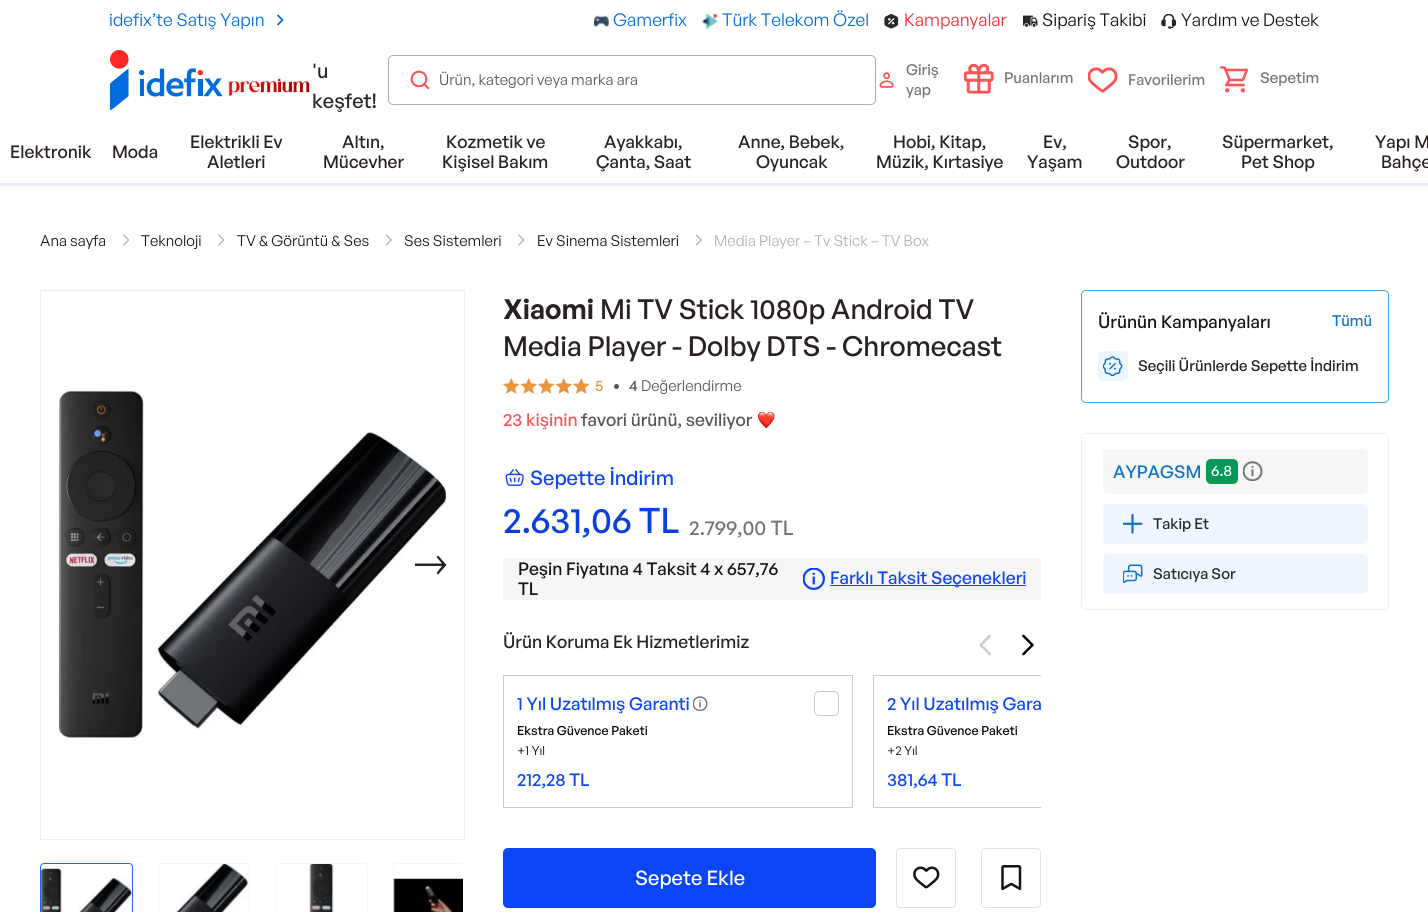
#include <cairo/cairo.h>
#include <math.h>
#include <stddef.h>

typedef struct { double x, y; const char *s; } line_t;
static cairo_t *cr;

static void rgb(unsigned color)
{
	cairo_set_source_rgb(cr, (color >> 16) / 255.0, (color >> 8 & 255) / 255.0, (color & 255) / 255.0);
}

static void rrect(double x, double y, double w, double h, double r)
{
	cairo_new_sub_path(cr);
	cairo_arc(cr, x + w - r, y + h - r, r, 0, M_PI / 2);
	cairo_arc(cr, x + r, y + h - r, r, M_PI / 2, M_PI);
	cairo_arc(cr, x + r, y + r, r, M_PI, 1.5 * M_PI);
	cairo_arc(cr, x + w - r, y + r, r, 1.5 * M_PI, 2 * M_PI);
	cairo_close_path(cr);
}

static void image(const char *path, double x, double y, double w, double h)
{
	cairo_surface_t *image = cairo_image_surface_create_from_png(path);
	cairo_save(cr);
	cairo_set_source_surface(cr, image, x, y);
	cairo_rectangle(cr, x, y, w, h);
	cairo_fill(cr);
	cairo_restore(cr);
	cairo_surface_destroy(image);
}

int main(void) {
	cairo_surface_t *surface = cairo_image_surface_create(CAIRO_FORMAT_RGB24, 1428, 912);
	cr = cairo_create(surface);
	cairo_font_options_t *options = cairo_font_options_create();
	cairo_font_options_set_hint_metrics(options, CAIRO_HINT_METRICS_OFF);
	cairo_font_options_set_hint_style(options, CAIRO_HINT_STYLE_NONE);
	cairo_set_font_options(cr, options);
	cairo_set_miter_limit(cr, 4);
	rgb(0xffffff);
	cairo_paint(cr);
	image("img/1.png", 277, 14, 7, 12);
	image("img/2.png", 594, 15, 15, 12);
	image("img/3.png", 702, 14, 16, 15);
	image("img/4.png", 884, 14, 15, 15);
	image("img/5.png", 1023, 15, 15, 12);
	image("img/6.png", 1161, 14, 15, 15);
	image("img/7.png", 110, 50, 113, 60);
	image("img/8.png", 228, 78, 82, 18);
	rrect(388.5, 55.5, 487, 49, 4.5);
	rgb(0xafafaf);
	cairo_set_line_width(cr, 1);
	cairo_stroke(cr);
	image("img/9.png", 410, 70, 20, 20);
	image("img/10.png", 879, 72, 15, 16);
	image("img/11.png", 964, 64, 30, 30);
	image("img/12.png", 1088, 67, 30, 26);
	image("img/13.png", 1220, 66, 29, 27);
	rgb(0xe7ecfe);
	cairo_rectangle(cr, 0, 183, 1428, 3);
	cairo_fill(cr);
	image("img/14.png", 123, 234, 7, 12);
	image("img/14.png", 218, 234, 7, 12);
	image("img/15.png", 385, 234, 7, 12);
	image("img/14.png", 518, 234, 7, 12);
	image("img/15.png", 695, 234, 7, 12);
	cairo_rectangle(cr, 40.5, 290.5, 424, 549);
	rgb(0xeeeeee);
	cairo_stroke(cr);
	image("img/16.png", 59, 390, 387, 348);
	rgb(0x292020);
	cairo_set_fill_rule(cr, CAIRO_FILL_RULE_EVEN_ODD);
	cairo_new_path(cr);
	cairo_move_to(cr, 438, 555.5);
	cairo_line_to(cr, 436.5, 557);
	cairo_line_to(cr, 442, 563.5);
	cairo_line_to(cr, 415, 563.5);
	cairo_line_to(cr, 415, 566);
	cairo_line_to(cr, 442, 566);
	cairo_line_to(cr, 436.5, 573);
	cairo_line_to(cr, 438, 574.5);
	cairo_line_to(cr, 446.5, 565);
	cairo_close_path(cr);
	cairo_fill(cr);
	rrect(40.5, 863.5, 92, 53, 3.5);
	rgb(0x2563eb);
	cairo_stroke(cr);
	image("img/17.png", 41, 868, 91, 44);
	rrect(158.5, 863.5, 91, 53, 3.5);
	rgb(0xf5f5f5);
	cairo_stroke(cr);
	image("img/18.png", 175, 864, 74, 48);
	rrect(275.5, 863.5, 92, 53, 3.5);
	cairo_stroke(cr);
	image("img/19.png", 309, 864, 25, 48);
	cairo_save(cr);
	cairo_set_fill_rule(cr, CAIRO_FILL_RULE_WINDING);
	cairo_rectangle(cr, 40, 863, 423, 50);
	cairo_clip(cr);
	rrect(393.5, 863.5, 91, 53, 3.5);
	cairo_stroke(cr);
	cairo_restore(cr);
	image("img/20.png", 393, 878, 70, 34);
	image("img/21.png", 503, 378, 17, 16);
	image("img/22.png", 520, 378, 17, 16);
	image("img/21.png", 538, 378, 17, 16);
	image("img/22.png", 555, 378, 17, 16);
	image("img/21.png", 573, 378, 17, 16);
	image("img/23.png", 503, 378, 17, 16);
	image("img/24.png", 520, 378, 17, 16);
	image("img/23.png", 538, 378, 17, 16);
	image("img/24.png", 555, 378, 17, 16);
	image("img/23.png", 573, 378, 17, 16);
	rgb(0x545454);
	cairo_arc(cr, 616.5, 386.5, 2.5, 0, 2 * M_PI);
	cairo_fill(cr);
	image("img/25.png", 757, 412, 18, 17);
	image("img/26.png", 505, 469, 19, 17);
	rgb(0xf6f6f6);
	rrect(503, 558, 538, 42, 2.5);
	cairo_fill(cr);
	image("img/27.png", 803, 568, 22, 22);
	rgb(0x0c45f5);
	cairo_rectangle(cr, 830, 585, 196, 1);
	cairo_fill(cr);
	image("img/28.png", 979, 634, 12, 22);
	image("img/29.png", 1022, 634, 12, 22);
	cairo_rectangle(cr, 503.5, 675.5, 349, 132);
	rgb(0xcbcbcb);
	cairo_stroke(cr);
	image("img/30.png", 693, 696, 15, 15);
	rrect(814.5, 691.5, 24, 24, 4.5);
	cairo_stroke(cr);
	cairo_save(cr);
	cairo_set_fill_rule(cr, CAIRO_FILL_RULE_WINDING);
	cairo_rectangle(cr, 493, 675, 548, 133);
	cairo_clip(cr);
	cairo_rectangle(cr, 873.5, 675.5, 349, 132);
	cairo_stroke(cr);
	cairo_restore(cr);
	rgb(0x0c45f5);
	rrect(503, 848, 373, 60, 5);
	cairo_fill(cr);
	rrect(896.5, 848.5, 59, 59, 3.5);
	rgb(0xe2e2e2);
	cairo_stroke(cr);
	image("img/31.png", 913, 866, 27, 23);
	rrect(981.5, 848.5, 59, 59, 3.5);
	cairo_stroke(cr);
	image("img/32.png", 1001, 865, 21, 26);
	rrect(1081.5, 290.5, 307, 112, 4.5);
	rgb(0x3fa9f5);
	cairo_stroke(cr);
	rgb(0xecf6fe);
	rrect(1098, 351, 30, 30, 5);
	cairo_fill(cr);
	image("img/33.png", 1103, 356, 20, 20);
	rrect(1081.5, 433.5, 307, 176, 4.5);
	rgb(0xeeeeee);
	cairo_stroke(cr);
	rgb(0xf6f6f6);
	rrect(1103, 449, 265, 45, 5);
	cairo_fill(cr);
	rgb(0x039855);
	rrect(1206, 459, 32, 25, 5);
	cairo_fill(cr);
	image("img/34.png", 1243, 461, 20, 20);
	rgb(0xeff6ff);
	rrect(1103, 504, 265, 40, 5);
	cairo_fill(cr);
	image("img/35.png", 1123, 514, 20, 20);
	rrect(1103, 554, 265, 40, 5);
	cairo_fill(cr);
	image("img/36.png", 1123, 564, 20, 19);
	cairo_select_font_face(cr, "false", CAIRO_FONT_SLANT_NORMAL, CAIRO_FONT_WEIGHT_NORMAL);
	cairo_set_font_size(cr, 17.5);
	rgb(0x006bdc);
	{
		static const line_t items[] = {
			{109, 26, "idefix’te Satış Yapın"},
			{613, 26, "Gamerfix"},
			{722, 26, "Türk Telekom Özel"},
		};
		for (size_t i = 0; i < sizeof items / sizeof *items; i++) {
			cairo_move_to(cr, items[i].x, items[i].y);
			cairo_show_text(cr, items[i].s);
		}
	}
	rgb(0xf92c2c);
	cairo_move_to(cr, 904, 26);
	cairo_show_text(cr, "Kampanyalar");
	rgb(0x0d0d0d);
	cairo_move_to(cr, 1042, 26);
	cairo_show_text(cr, "Sipariş Takibi");
	rgb(0x141414);
	cairo_move_to(cr, 1181, 26);
	cairo_show_text(cr, "Yardım ve Destek");
	cairo_select_font_face(cr, "General Sans Medium", CAIRO_FONT_SLANT_NORMAL, CAIRO_FONT_WEIGHT_NORMAL);
	cairo_set_font_size(cr, 20);
	rgb(0x282828);
	cairo_move_to(cr, 312, 78);
	cairo_show_text(cr, "'u");
	cairo_move_to(cr, 312, 108);
	cairo_show_text(cr, "keşfet!");
	cairo_select_font_face(cr, "false", CAIRO_FONT_SLANT_NORMAL, CAIRO_FONT_WEIGHT_NORMAL);
	cairo_set_font_size(cr, 15);
	rgb(0x545454);
	cairo_move_to(cr, 439, 85);
	cairo_show_text(cr, "Ürün, kategori veya marka ara");
	cairo_select_font_face(cr, "General Sans Medium", CAIRO_FONT_SLANT_NORMAL, CAIRO_FONT_WEIGHT_NORMAL);
	rgb(0x757575);
	{
		static const line_t items[] = {
			{906, 75, "Giriş"},
			{906, 95, "yap"},
			{1004, 83, "Puanlarım"},
			{1128, 85, "Favorilerim"},
			{1260, 83, "Sepetim"},
		};
		for (size_t i = 0; i < sizeof items / sizeof *items; i++) {
			cairo_move_to(cr, items[i].x, items[i].y);
			cairo_show_text(cr, items[i].s);
		}
	}
	cairo_set_font_size(cr, 17.5);
	rgb(0x292020);
	{
		static const line_t items[] = {
			{10, 158, "Elektronik"},
			{112, 158, "Moda"},
			{190, 148, "Elektrikli Ev"},
			{207, 168, "Aletleri"},
			{342, 148, "Altın,"},
			{323, 168, "Mücevher"},
			{446, 148, "Kozmetik ve"},
			{442, 168, "Kişisel Bakım"},
			{604, 148, "Ayakkabı,"},
			{596, 168, "Çanta, Saat"},
			{738, 148, "Anne, Bebek,"},
			{756, 168, "Oyuncak"},
			{893, 148, "Hobi, Kitap,"},
			{876, 168, "Müzik, Kırtasiye"},
			{1043, 148, "Ev,"},
			{1027, 168, "Yaşam"},
			{1128, 148, "Spor,"},
			{1116, 168, "Outdoor"},
			{1222, 148, "Süpermarket,"},
			{1241, 168, "Pet Shop"},
			{1375, 148, "Yapı M"},
			{1381, 168, "Bahçe"},
		};
		for (size_t i = 0; i < sizeof items / sizeof *items; i++) {
			cairo_move_to(cr, items[i].x, items[i].y);
			cairo_show_text(cr, items[i].s);
		}
	}
	cairo_select_font_face(cr, "false", CAIRO_FONT_SLANT_NORMAL, CAIRO_FONT_WEIGHT_NORMAL);
	cairo_set_font_size(cr, 15);
	rgb(0x141414);
	{
		static const line_t items[] = {
			{40, 246, "Ana sayfa"},
			{141, 246, "Teknoloji"},
			{237, 246, "TV & Görüntü & Ses"},
			{404, 246, "Ses Sistemleri"},
			{537, 246, "Ev Sinema Sistemleri"},
		};
		for (size_t i = 0; i < sizeof items / sizeof *items; i++) {
			cairo_move_to(cr, items[i].x, items[i].y);
			cairo_show_text(cr, items[i].s);
		}
	}
	rgb(0xafafaf);
	cairo_move_to(cr, 714, 246);
	cairo_show_text(cr, "Media Player – Tv Stick – TV Box");
	cairo_select_font_face(cr, "General Sans SemiBold", CAIRO_FONT_SLANT_NORMAL, CAIRO_FONT_WEIGHT_NORMAL);
	cairo_set_font_size(cr, 27.5);
	rgb(0x292020);
	cairo_move_to(cr, 503, 319);
	cairo_show_text(cr, "Xiaomi");
	cairo_select_font_face(cr, "General Sans Medium", CAIRO_FONT_SLANT_NORMAL, CAIRO_FONT_WEIGHT_NORMAL);
	cairo_move_to(cr, 600, 319);
	cairo_show_text(cr, "Mi TV Stick 1080p Android TV");
	cairo_move_to(cr, 503, 356);
	cairo_show_text(cr, "Media Player - Dolby DTS - Chromecast");
	cairo_set_font_size(cr, 15);
	rgb(0xea963c);
	cairo_move_to(cr, 595, 391);
	cairo_show_text(cr, "5");
	rgb(0x545454);
	cairo_move_to(cr, 629, 391);
	cairo_show_text(cr, "4");
	cairo_select_font_face(cr, "false", CAIRO_FONT_SLANT_NORMAL, CAIRO_FONT_WEIGHT_NORMAL);
	cairo_move_to(cr, 641, 391);
	cairo_show_text(cr, "Değerlendirme");
	cairo_select_font_face(cr, "General Sans Medium", CAIRO_FONT_SLANT_NORMAL, CAIRO_FONT_WEIGHT_NORMAL);
	cairo_set_font_size(cr, 17.5);
	rgb(0xfc5454);
	cairo_move_to(cr, 503, 426);
	cairo_show_text(cr, "23 kişinin");
	rgb(0x545454);
	cairo_move_to(cr, 581, 426);
	cairo_show_text(cr, "favori ürünü, seviliyor");
	cairo_set_font_size(cr, 20);
	rgb(0x0c45f5);
	cairo_move_to(cr, 530, 485);
	cairo_show_text(cr, "Sepette İndirim");
	cairo_set_font_size(cr, 35);
	rgb(0x0b3fdf);
	cairo_move_to(cr, 503, 533);
	cairo_show_text(cr, "2.631,06 TL");
	cairo_set_font_size(cr, 20);
	rgb(0x757575);
	cairo_move_to(cr, 689, 535);
	cairo_show_text(cr, "2.799,00 TL");
	cairo_set_font_size(cr, 17.5);
	rgb(0x141414);
	cairo_move_to(cr, 518, 575);
	cairo_show_text(cr, "Peşin Fiyatına 4 Taksit 4 x 657,76");
	cairo_move_to(cr, 518, 595);
	cairo_show_text(cr, "TL");
	rgb(0x0c45f5);
	cairo_move_to(cr, 830, 584);
	cairo_show_text(cr, "Farklı Taksit Seçenekleri");
	rgb(0x292020);
	cairo_move_to(cr, 503, 648);
	cairo_show_text(cr, "Ürün Koruma Ek Hizmetlerimiz");
	rgb(0x0c45f5);
	cairo_move_to(cr, 517, 710);
	cairo_show_text(cr, "1 Yıl Uzatılmış Garanti");
	cairo_set_font_size(cr, 12.5);
	rgb(0x000000);
	cairo_move_to(cr, 517, 735);
	cairo_show_text(cr, "Ekstra Güvence Paketi");
	cairo_select_font_face(cr, "false", CAIRO_FONT_SLANT_NORMAL, CAIRO_FONT_WEIGHT_NORMAL);
	cairo_move_to(cr, 517, 755);
	cairo_show_text(cr, "+1 Yıl");
	cairo_select_font_face(cr, "General Sans Medium", CAIRO_FONT_SLANT_NORMAL, CAIRO_FONT_WEIGHT_NORMAL);
	cairo_set_font_size(cr, 17.5);
	rgb(0x0c45f5);
	cairo_move_to(cr, 517, 786);
	cairo_show_text(cr, "212,28 TL");
	cairo_move_to(cr, 887, 710);
	cairo_show_text(cr, "2 Yıl Uzatılmış Gara");
	cairo_set_font_size(cr, 12.5);
	rgb(0x000000);
	cairo_move_to(cr, 887, 735);
	cairo_show_text(cr, "Ekstra Güvence Paketi");
	cairo_select_font_face(cr, "false", CAIRO_FONT_SLANT_NORMAL, CAIRO_FONT_WEIGHT_NORMAL);
	cairo_move_to(cr, 887, 755);
	cairo_show_text(cr, "+2 Yıl");
	cairo_select_font_face(cr, "General Sans Medium", CAIRO_FONT_SLANT_NORMAL, CAIRO_FONT_WEIGHT_NORMAL);
	cairo_set_font_size(cr, 17.5);
	rgb(0x0c45f5);
	cairo_move_to(cr, 887, 786);
	cairo_show_text(cr, "381,64 TL");
	cairo_set_font_size(cr, 20);
	rgb(0xffffff);
	cairo_move_to(cr, 635, 885);
	cairo_show_text(cr, "Sepete Ekle");
	cairo_set_font_size(cr, 17.5);
	rgb(0x141414);
	cairo_move_to(cr, 1098, 328);
	cairo_show_text(cr, "Ürünün Kampanyaları");
	cairo_set_font_size(cr, 15);
	rgb(0x1171c9);
	cairo_move_to(cr, 1332, 326);
	cairo_show_text(cr, "Tümü");
	rgb(0x1f1f1f);
	cairo_move_to(cr, 1138, 371);
	cairo_show_text(cr, "Seçili Ürünlerde Sepette İndirim");
	cairo_set_font_size(cr, 17.5);
	rgb(0x1171c9);
	cairo_move_to(cr, 1113, 478);
	cairo_show_text(cr, "AYPAGSM");
	cairo_set_font_size(cr, 15);
	rgb(0xffffff);
	cairo_move_to(cr, 1211, 476);
	cairo_show_text(cr, "6.8");
	rgb(0x282828);
	cairo_move_to(cr, 1153, 529);
	cairo_show_text(cr, "Takip Et");
	cairo_move_to(cr, 1153, 579);
	cairo_show_text(cr, "Satıcıya Sor");
	cairo_surface_write_to_png(surface, "page.png");
	cairo_font_options_destroy(options);
	cairo_destroy(cr);
	cairo_surface_destroy(surface);
	return 0;
}
